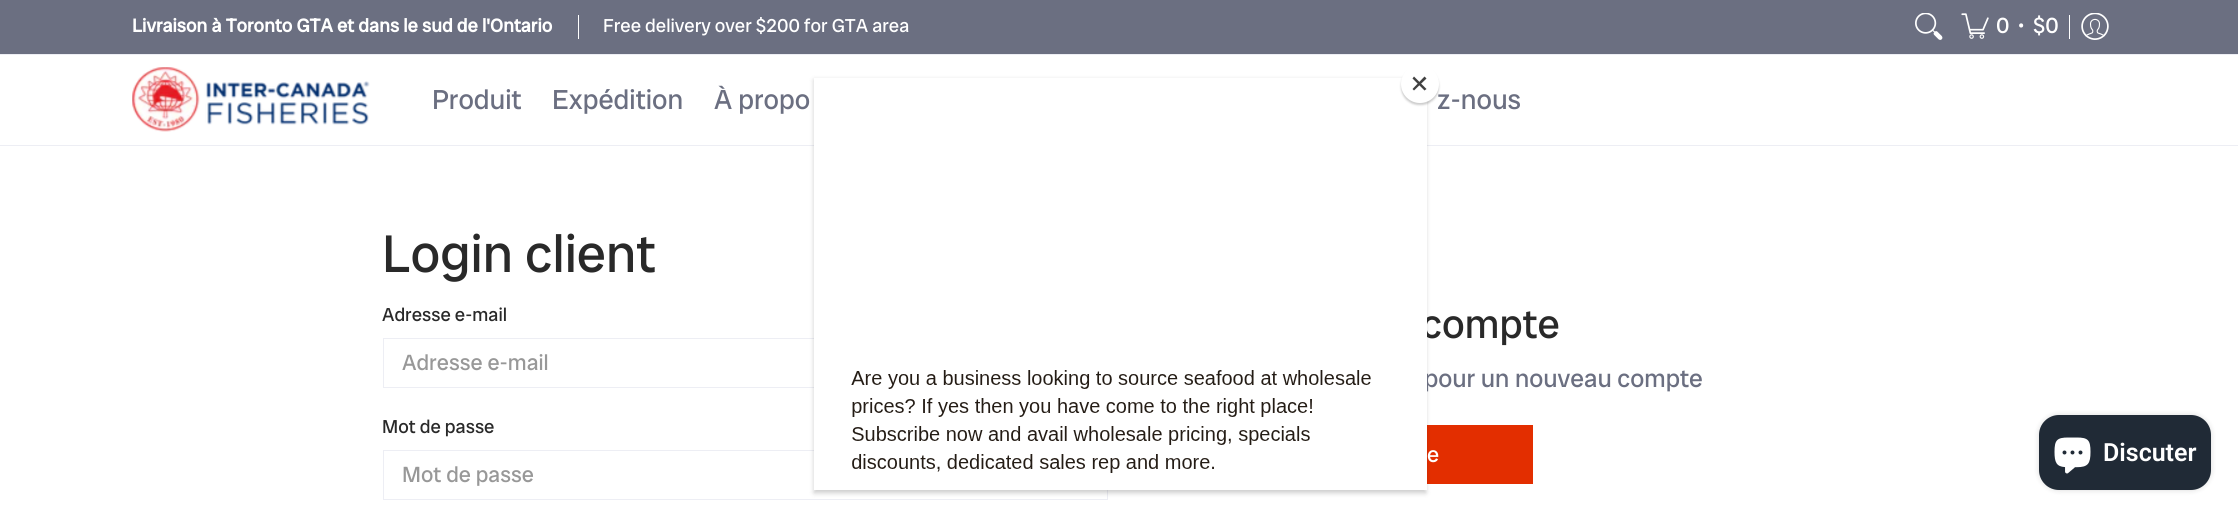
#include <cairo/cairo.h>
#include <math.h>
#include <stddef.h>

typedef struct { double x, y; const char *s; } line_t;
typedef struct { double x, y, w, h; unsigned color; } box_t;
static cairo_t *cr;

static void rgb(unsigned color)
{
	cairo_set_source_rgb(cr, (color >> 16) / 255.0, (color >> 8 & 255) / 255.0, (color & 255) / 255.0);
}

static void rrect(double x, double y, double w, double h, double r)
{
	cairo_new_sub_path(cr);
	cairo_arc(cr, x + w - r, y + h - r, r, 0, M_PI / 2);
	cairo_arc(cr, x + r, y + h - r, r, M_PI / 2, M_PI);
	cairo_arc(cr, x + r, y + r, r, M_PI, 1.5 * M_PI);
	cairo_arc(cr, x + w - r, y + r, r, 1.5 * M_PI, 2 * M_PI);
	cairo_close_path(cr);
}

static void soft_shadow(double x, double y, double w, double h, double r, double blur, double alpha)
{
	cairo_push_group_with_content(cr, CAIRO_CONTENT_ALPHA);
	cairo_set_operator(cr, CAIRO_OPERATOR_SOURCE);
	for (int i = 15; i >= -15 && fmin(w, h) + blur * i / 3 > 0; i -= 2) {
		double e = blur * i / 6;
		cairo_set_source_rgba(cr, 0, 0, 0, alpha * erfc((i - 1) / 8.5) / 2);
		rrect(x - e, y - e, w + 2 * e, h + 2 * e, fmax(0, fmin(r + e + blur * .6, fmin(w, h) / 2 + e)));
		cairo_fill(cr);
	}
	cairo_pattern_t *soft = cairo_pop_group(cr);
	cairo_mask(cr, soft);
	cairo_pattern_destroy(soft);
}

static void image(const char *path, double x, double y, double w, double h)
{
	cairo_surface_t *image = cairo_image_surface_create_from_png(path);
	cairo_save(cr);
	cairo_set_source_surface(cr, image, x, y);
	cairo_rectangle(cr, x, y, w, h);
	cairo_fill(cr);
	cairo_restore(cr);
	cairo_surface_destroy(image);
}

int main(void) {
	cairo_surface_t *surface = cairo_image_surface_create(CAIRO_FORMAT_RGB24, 2238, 516);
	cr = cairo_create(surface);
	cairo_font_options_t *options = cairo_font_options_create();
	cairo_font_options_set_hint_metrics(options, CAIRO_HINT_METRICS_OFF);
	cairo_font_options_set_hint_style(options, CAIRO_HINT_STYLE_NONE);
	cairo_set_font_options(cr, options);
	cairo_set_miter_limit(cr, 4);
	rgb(0xffffff);
	cairo_paint(cr);
	{
		static const box_t items[] = {
			{0, 0, 2238, 54, 0x6b6f81},
			{0, 54, 2238, 1, 0xedeef4},
			{578, 15, 1, 24, 0xffffff},
		};
		for (size_t i = 0; i < sizeof items / sizeof *items; i++) {
			rgb(items[i].color);
			cairo_rectangle(cr, items[i].x, items[i].y, items[i].w, items[i].h);
			cairo_fill(cr);
		}
	}
	image("img/1.png", 1915, 13, 28, 27);
	image("img/2.png", 1961, 13, 28, 26);
	cairo_rectangle(cr, 2069, 15, 1, 24);
	cairo_fill(cr);
	image("img/3.png", 2081, 13, 28, 27);
	rgb(0xedeef4);
	cairo_rectangle(cr, 0, 145, 2238, 1);
	cairo_fill(cr);
	image("img/4.png", 132, 67, 238, 65);
	cairo_rectangle(cr, 383.5, 338.5, 724, 49);
	cairo_set_line_width(cr, 1);
	cairo_stroke(cr);
	cairo_rectangle(cr, 383.5, 450.5, 724, 49);
	cairo_stroke(cr);
	rgb(0xe32e00);
	cairo_rectangle(cr, 1427, 425, 106, 59);
	cairo_fill(cr);
	rgb(0x000000);
	soft_shadow(814, 80, 612, 413, 0, 2.5, 0.2);
	soft_shadow(2039, 415, 172, 75, 20, 3, 0.15);
	rgb(0x202a36);
	rrect(2039, 415, 172, 75, 20);
	cairo_fill(cr);
	image("img/6.png", 2054, 437, 37, 37);
	cairo_select_font_face(cr, "Radio Canada Big", CAIRO_FONT_SLANT_NORMAL, CAIRO_FONT_WEIGHT_BOLD);
	cairo_set_font_size(cr, 18.75);
	rgb(0xffffff);
	cairo_move_to(cr, 132, 32);
	cairo_show_text(cr, "Livraison à Toronto GTA et dans le sud de l'Ontario");
	cairo_select_font_face(cr, "Radio Canada Big", CAIRO_FONT_SLANT_NORMAL, CAIRO_FONT_WEIGHT_NORMAL);
	cairo_move_to(cr, 603, 32);
	cairo_show_text(cr, "Free delivery over $200 for GTA area");
	cairo_set_font_size(cr, 22);
	{
		static const line_t items[] = {
			{1996, 33, "0"},
			{2018, 32, "•"},
			{2033, 33, "$0"},
		};
		for (size_t i = 0; i < sizeof items / sizeof *items; i++) {
			cairo_move_to(cr, items[i].x, items[i].y);
			cairo_show_text(cr, items[i].s);
		}
	}
	cairo_set_font_size(cr, 27.5);
	rgb(0x6b6f81);
	{
		static const line_t items[] = {
			{432, 109, "Produit"},
			{552, 109, "Expédition"},
			{714, 109, "À propo"},
			{1437, 109, "z-nous"},
		};
		for (size_t i = 0; i < sizeof items / sizeof *items; i++) {
			cairo_move_to(cr, items[i].x, items[i].y);
			cairo_show_text(cr, items[i].s);
		}
	}
	cairo_set_font_size(cr, 53);
	rgb(0x292929);
	cairo_move_to(cr, 382, 272);
	cairo_show_text(cr, "Login client");
	cairo_set_font_size(cr, 18.75);
	cairo_move_to(cr, 382, 321);
	cairo_show_text(cr, "Adresse e-mail");
	cairo_set_font_size(cr, 22);
	rgb(0x989898);
	cairo_move_to(cr, 402, 370);
	cairo_show_text(cr, "Adresse e-mail");
	cairo_set_font_size(cr, 18.75);
	rgb(0x292929);
	cairo_move_to(cr, 382, 433);
	cairo_show_text(cr, "Mot de passe");
	cairo_set_font_size(cr, 22);
	rgb(0x989898);
	cairo_move_to(cr, 402, 482);
	cairo_show_text(cr, "Mot de passe");
	cairo_set_font_size(cr, 40.5);
	rgb(0x292929);
	cairo_move_to(cr, 1421, 338);
	cairo_show_text(cr, "compte");
	cairo_set_font_size(cr, 25);
	rgb(0x6b6f81);
	cairo_move_to(cr, 1424, 387);
	cairo_show_text(cr, "pour un nouveau compte");
	image("img/5.png", 814, 78, 613, 412);
	rgb(0x000000);
	soft_shadow(1401, 68, 38, 37, 18.5, 1, 0.2);
	rgb(0xffffff);
	cairo_arc(cr, 1420, 84, 19, 0, 2 * M_PI);
	cairo_fill(cr);
	rgb(0x414141);
	cairo_new_path(cr);
	cairo_move_to(cr, 1424.5, 76.5);
	cairo_line_to(cr, 1426.5, 78.5);
	cairo_line_to(cr, 1414, 90.5);
	cairo_line_to(cr, 1412.5, 89);
	cairo_close_path(cr);
	cairo_fill(cr);
	cairo_new_path(cr);
	cairo_move_to(cr, 1412.5, 78.5);
	cairo_line_to(cr, 1414, 76.5);
	cairo_line_to(cr, 1426.5, 89);
	cairo_line_to(cr, 1424.5, 90.5);
	cairo_close_path(cr);
	cairo_fill(cr);
	cairo_set_font_size(cr, 22);
	rgb(0xffffff);
	cairo_move_to(cr, 1427, 462);
	cairo_show_text(cr, "e");
	cairo_select_font_face(cr, "Roboto SemiBold", CAIRO_FONT_SLANT_NORMAL, CAIRO_FONT_WEIGHT_NORMAL);
	cairo_set_font_size(cr, 25);
	cairo_move_to(cr, 2103, 461);
	cairo_show_text(cr, "Discuter");
	cairo_surface_write_to_png(surface, "page.png");
	cairo_font_options_destroy(options);
	cairo_destroy(cr);
	cairo_surface_destroy(surface);
	return 0;
}
